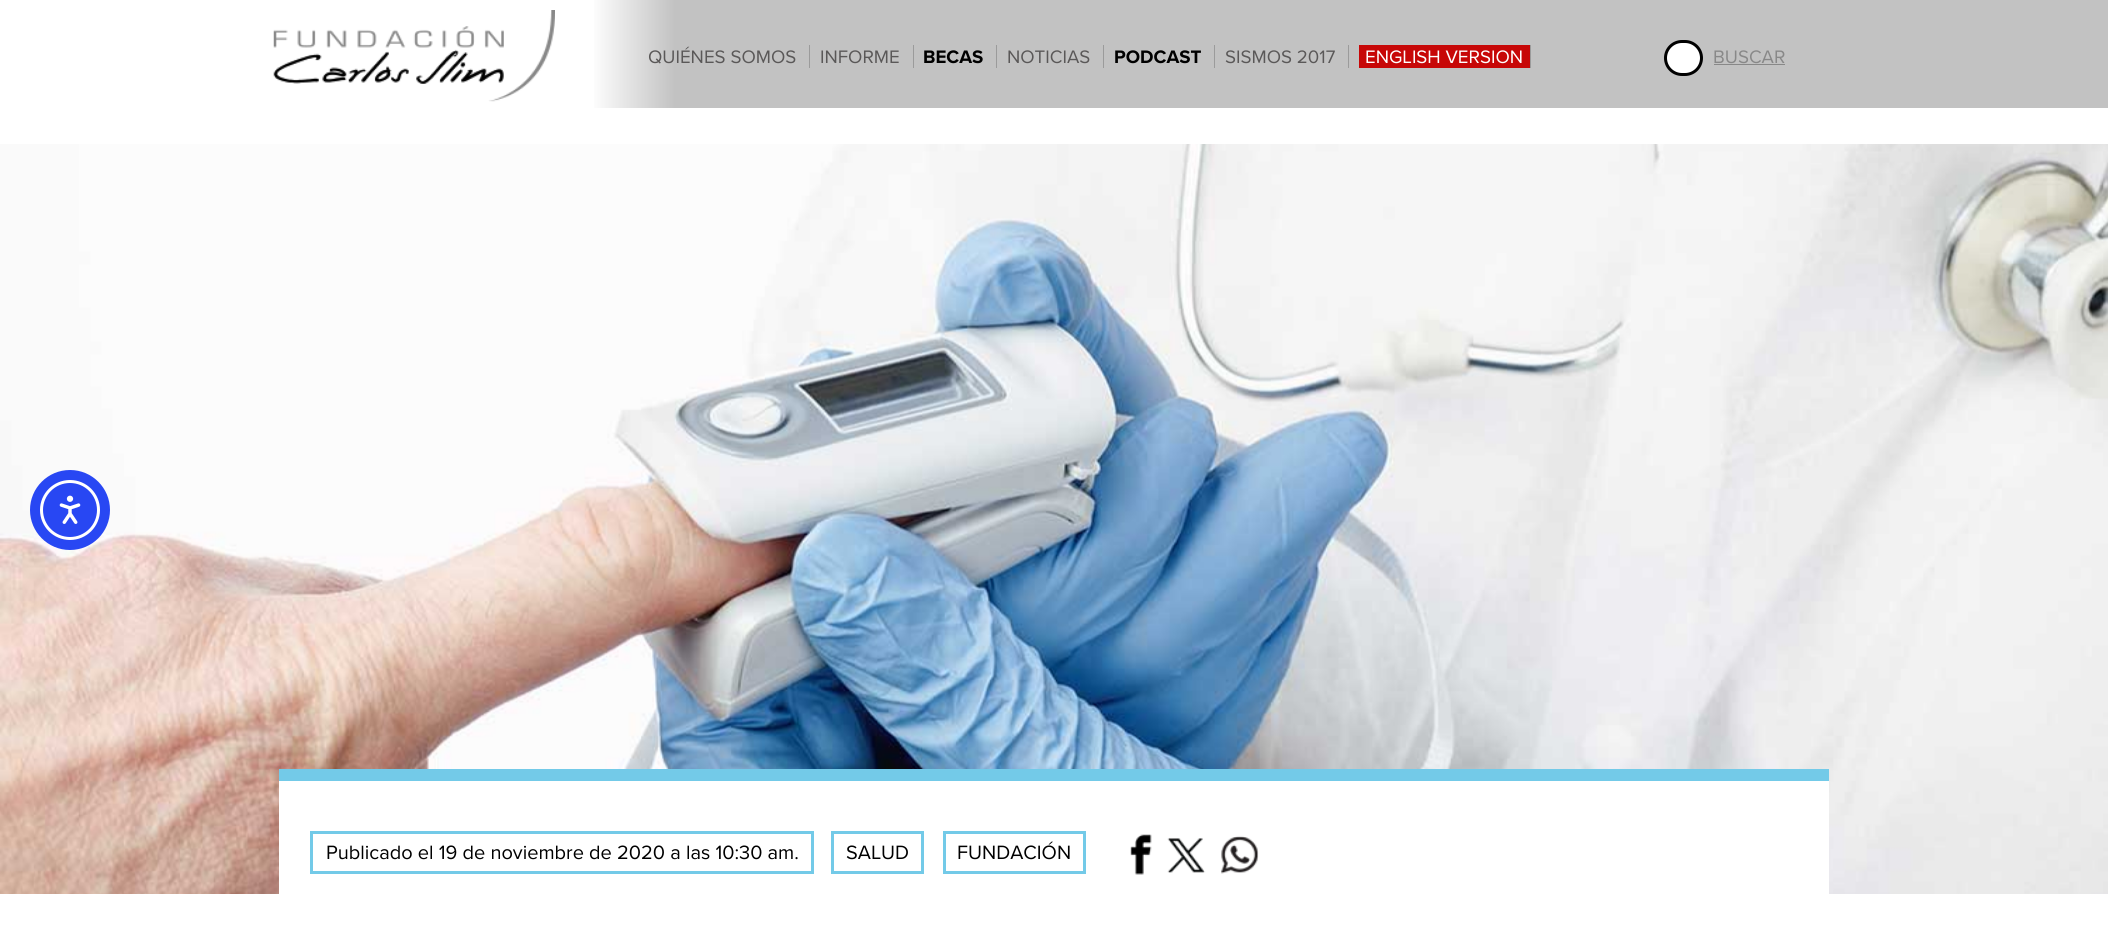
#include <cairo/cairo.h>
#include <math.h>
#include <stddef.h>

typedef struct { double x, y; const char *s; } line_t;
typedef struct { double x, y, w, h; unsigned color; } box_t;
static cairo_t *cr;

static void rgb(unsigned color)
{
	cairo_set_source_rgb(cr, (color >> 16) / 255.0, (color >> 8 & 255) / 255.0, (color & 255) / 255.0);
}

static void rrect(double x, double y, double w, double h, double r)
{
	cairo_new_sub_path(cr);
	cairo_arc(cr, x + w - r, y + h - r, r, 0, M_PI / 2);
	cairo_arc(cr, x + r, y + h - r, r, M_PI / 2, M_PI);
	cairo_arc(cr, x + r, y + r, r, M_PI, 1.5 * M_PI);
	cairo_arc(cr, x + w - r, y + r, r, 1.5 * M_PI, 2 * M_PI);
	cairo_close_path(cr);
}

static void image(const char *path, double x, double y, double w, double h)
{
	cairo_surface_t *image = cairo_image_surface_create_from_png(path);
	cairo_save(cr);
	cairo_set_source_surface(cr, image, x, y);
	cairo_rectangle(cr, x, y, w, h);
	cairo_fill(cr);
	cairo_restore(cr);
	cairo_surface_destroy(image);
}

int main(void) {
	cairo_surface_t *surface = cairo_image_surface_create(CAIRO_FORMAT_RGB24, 2108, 938);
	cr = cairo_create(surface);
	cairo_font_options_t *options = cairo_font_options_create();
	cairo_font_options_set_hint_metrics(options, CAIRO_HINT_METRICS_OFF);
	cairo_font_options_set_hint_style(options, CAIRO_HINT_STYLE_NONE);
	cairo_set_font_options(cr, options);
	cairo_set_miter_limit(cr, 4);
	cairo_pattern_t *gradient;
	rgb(0xffffff);
	cairo_paint(cr);
	image("img/4.png", 0, 144, 2108, 750);
	rgb(0x2847f3);
	cairo_arc(cr, 70, 510, 40, 0, 2 * M_PI);
	cairo_fill(cr);
	cairo_arc(cr, 70, 510, 28.5, 0, 2 * M_PI);
	rgb(0xffffff);
	cairo_set_line_width(cr, 3);
	cairo_stroke(cr);
	image("img/1.png", 59, 495, 22, 29);
	gradient = cairo_pattern_create_linear(0, 54, 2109, 54);
	cairo_pattern_add_color_stop_rgba(gradient, 0, 1, 1, 1, 1);
	cairo_pattern_add_color_stop_rgba(gradient, 0.28, 1, 1, 1, 1);
	cairo_pattern_add_color_stop_rgba(gradient, 0.32, 0.761, 0.761, 0.761, 1);
	cairo_pattern_add_color_stop_rgba(gradient, 1, 0.761, 0.761, 0.761, 1);
	cairo_set_source(cr, gradient);
	cairo_pattern_destroy(gradient);
	cairo_rectangle(cr, 594, 0, 1514, 108);
	cairo_fill(cr);
	image("img/2.png", 273, 10, 282, 92);
	{
		static const box_t items[] = {
			{809, 45, 1, 23, 0x9b9b9b},
			{913, 45, 1, 23, 0x9b9b9b},
			{996, 45, 1, 23, 0x9b9b9b},
			{1103, 45, 1, 23, 0x9b9b9b},
			{1214, 45, 1, 23, 0x9b9b9b},
			{1348, 45, 1, 23, 0x9b9b9b},
			{1359, 45, 171, 23, 0xc70707},
			{1530, 45, 1, 23, 0x9b9b9b},
		};
		for (size_t i = 0; i < sizeof items / sizeof *items; i++) {
			rgb(items[i].color);
			cairo_rectangle(cr, items[i].x, items[i].y, items[i].w, items[i].h);
			cairo_fill(cr);
		}
	}
	rgb(0xffffff);
	rrect(1665.5, 41.5, 36, 33, 16.5);
	cairo_fill_preserve(cr);
	rgb(0x000000);
	cairo_stroke(cr);
	{
		static const box_t items[] = {
			{1714, 64, 71, 1, 0x888888},
			{279, 781, 1550, 113, 0xffffff},
			{279, 769, 1550, 12, 0x73cae8},
		};
		for (size_t i = 0; i < sizeof items / sizeof *items; i++) {
			rgb(items[i].color);
			cairo_rectangle(cr, items[i].x, items[i].y, items[i].w, items[i].h);
			cairo_fill(cr);
		}
	}
	cairo_rectangle(cr, 311.5, 832.5, 501, 40);
	cairo_stroke(cr);
	cairo_rectangle(cr, 832.5, 832.5, 90, 40);
	cairo_stroke(cr);
	cairo_rectangle(cr, 944.5, 832.5, 140, 40);
	cairo_stroke(cr);
	image("img/3.png", 1130, 834, 129, 41);
	cairo_select_font_face(cr, "Proxima Nova", CAIRO_FONT_SLANT_NORMAL, CAIRO_FONT_WEIGHT_NORMAL);
	cairo_set_font_size(cr, 18.75);
	rgb(0x5a5858);
	cairo_move_to(cr, 648, 63);
	cairo_show_text(cr, "QUIÉNES SOMOS");
	cairo_move_to(cr, 820, 63);
	cairo_show_text(cr, "INFORME");
	cairo_select_font_face(cr, "Proxima Nova", CAIRO_FONT_SLANT_NORMAL, CAIRO_FONT_WEIGHT_BOLD);
	rgb(0x000000);
	cairo_move_to(cr, 923, 63);
	cairo_show_text(cr, "BECAS");
	cairo_select_font_face(cr, "Proxima Nova", CAIRO_FONT_SLANT_NORMAL, CAIRO_FONT_WEIGHT_NORMAL);
	rgb(0x5a5858);
	cairo_move_to(cr, 1007, 63);
	cairo_show_text(cr, "NOTICIAS");
	cairo_select_font_face(cr, "Proxima Nova", CAIRO_FONT_SLANT_NORMAL, CAIRO_FONT_WEIGHT_BOLD);
	rgb(0x000000);
	cairo_move_to(cr, 1114, 63);
	cairo_show_text(cr, "PODCAST");
	cairo_select_font_face(cr, "Proxima Nova", CAIRO_FONT_SLANT_NORMAL, CAIRO_FONT_WEIGHT_NORMAL);
	rgb(0x5a5858);
	cairo_move_to(cr, 1225, 63);
	cairo_show_text(cr, "SISMOS 2017");
	rgb(0xffffff);
	cairo_move_to(cr, 1365, 63);
	cairo_show_text(cr, "ENGLISH VERSION");
	rgb(0x888888);
	cairo_move_to(cr, 1713, 63);
	cairo_show_text(cr, "BUSCAR");
	cairo_set_font_size(cr, 20);
	rgb(0x000000);
	{
		static const line_t items[] = {
			{326, 859, "Publicado el 19 de noviembre de 2020 a las 10:30 am."},
			{846, 859, "SALUD"},
			{957, 859, "FUNDACIÓN"},
		};
		for (size_t i = 0; i < sizeof items / sizeof *items; i++) {
			cairo_move_to(cr, items[i].x, items[i].y);
			cairo_show_text(cr, items[i].s);
		}
	}
	cairo_surface_write_to_png(surface, "page.png");
	cairo_font_options_destroy(options);
	cairo_destroy(cr);
	cairo_surface_destroy(surface);
	return 0;
}
